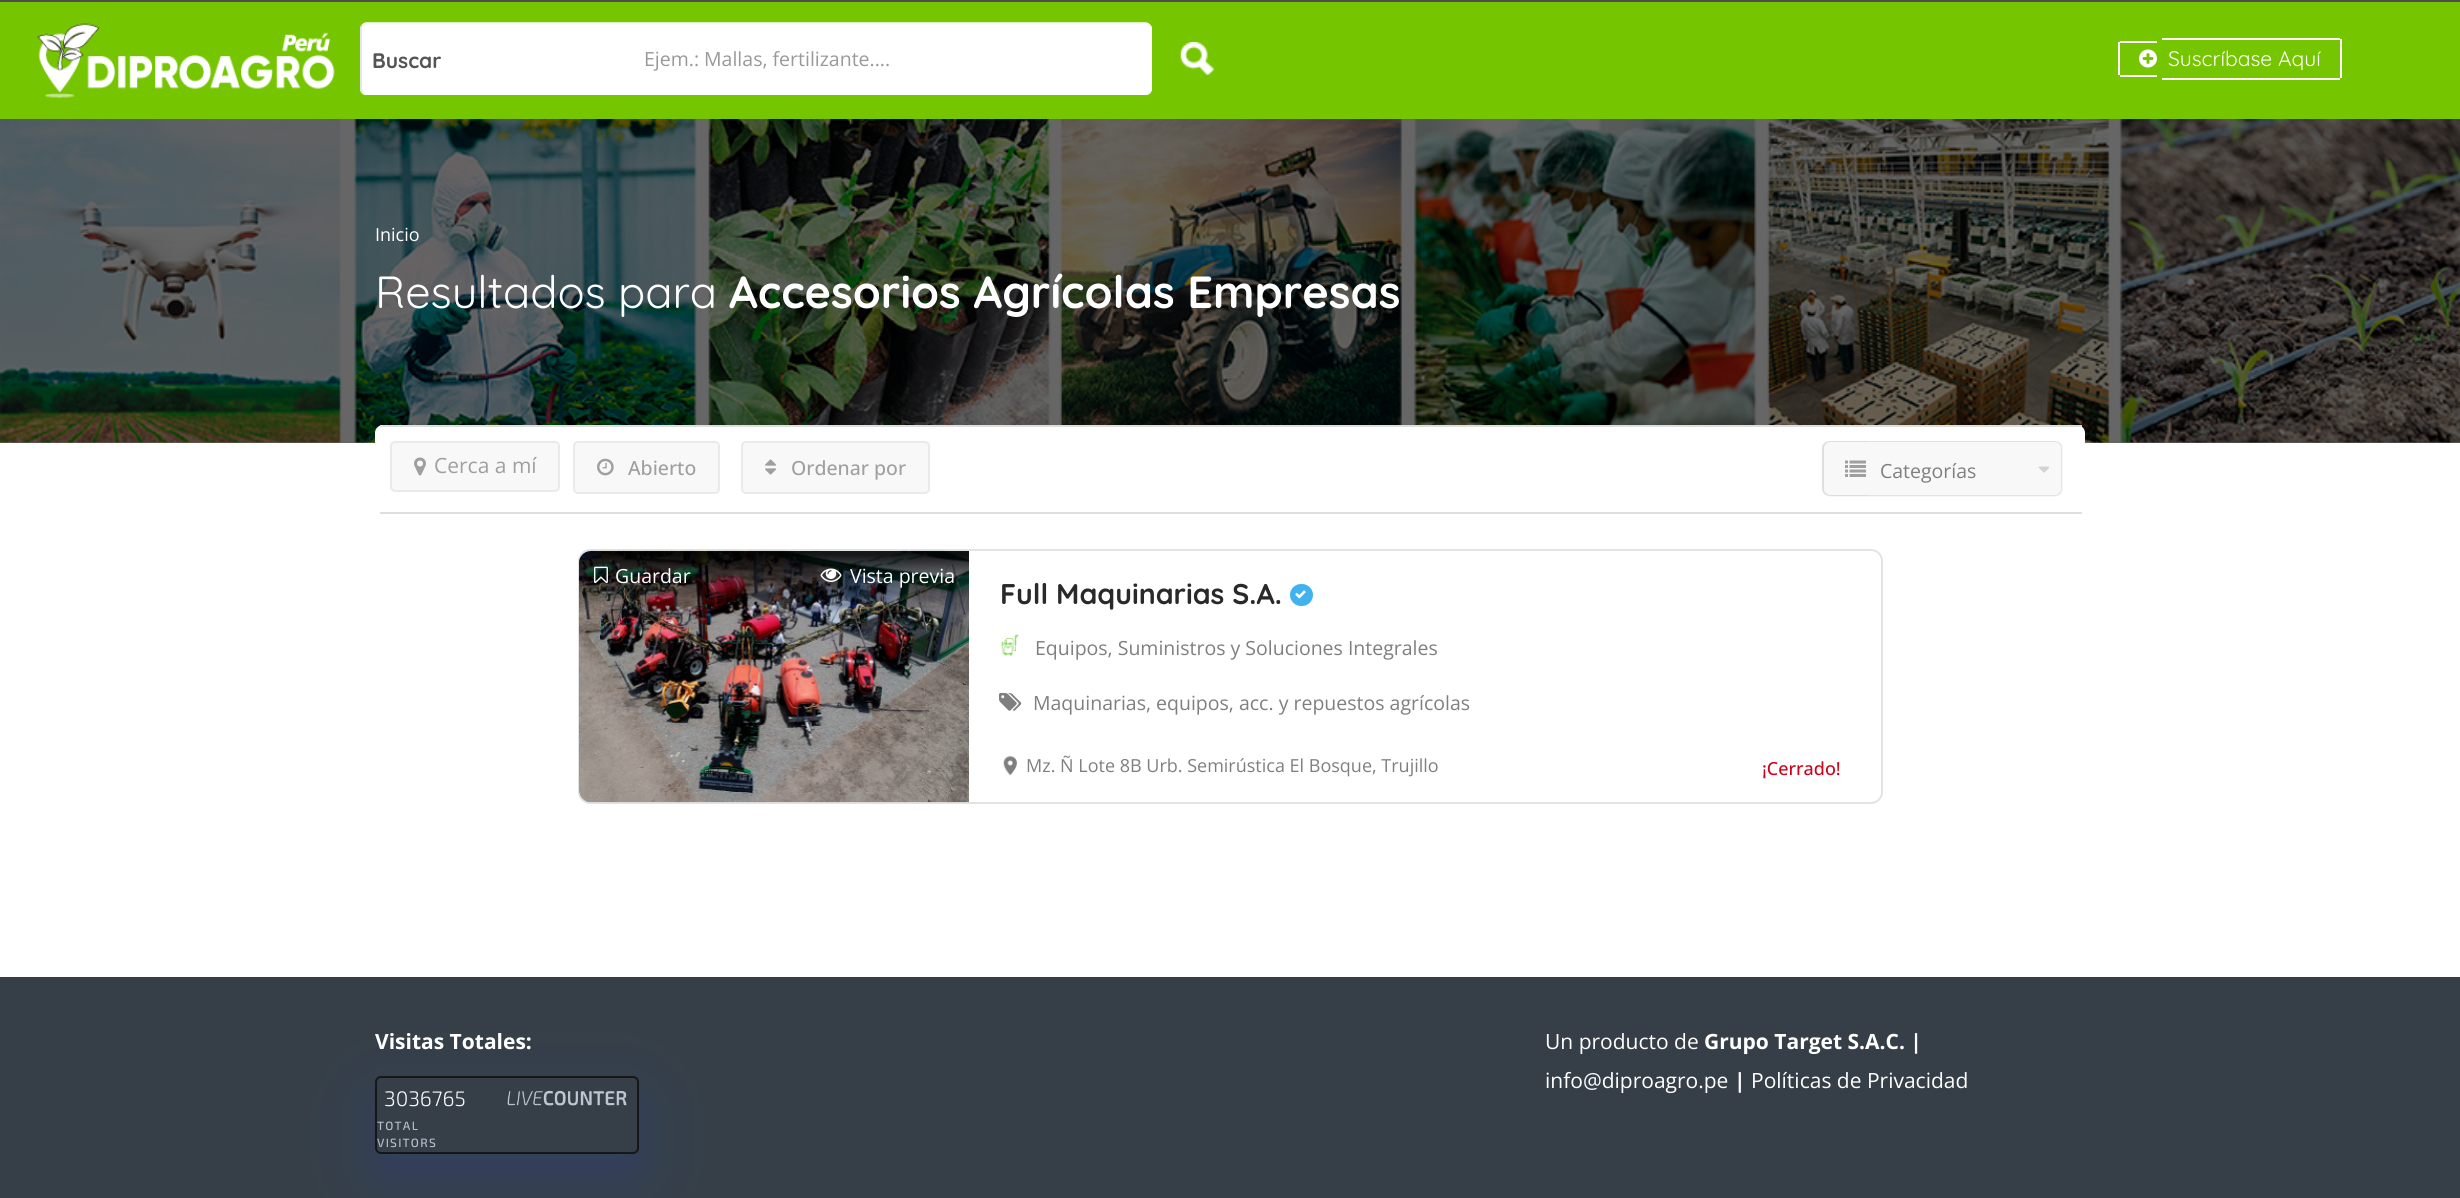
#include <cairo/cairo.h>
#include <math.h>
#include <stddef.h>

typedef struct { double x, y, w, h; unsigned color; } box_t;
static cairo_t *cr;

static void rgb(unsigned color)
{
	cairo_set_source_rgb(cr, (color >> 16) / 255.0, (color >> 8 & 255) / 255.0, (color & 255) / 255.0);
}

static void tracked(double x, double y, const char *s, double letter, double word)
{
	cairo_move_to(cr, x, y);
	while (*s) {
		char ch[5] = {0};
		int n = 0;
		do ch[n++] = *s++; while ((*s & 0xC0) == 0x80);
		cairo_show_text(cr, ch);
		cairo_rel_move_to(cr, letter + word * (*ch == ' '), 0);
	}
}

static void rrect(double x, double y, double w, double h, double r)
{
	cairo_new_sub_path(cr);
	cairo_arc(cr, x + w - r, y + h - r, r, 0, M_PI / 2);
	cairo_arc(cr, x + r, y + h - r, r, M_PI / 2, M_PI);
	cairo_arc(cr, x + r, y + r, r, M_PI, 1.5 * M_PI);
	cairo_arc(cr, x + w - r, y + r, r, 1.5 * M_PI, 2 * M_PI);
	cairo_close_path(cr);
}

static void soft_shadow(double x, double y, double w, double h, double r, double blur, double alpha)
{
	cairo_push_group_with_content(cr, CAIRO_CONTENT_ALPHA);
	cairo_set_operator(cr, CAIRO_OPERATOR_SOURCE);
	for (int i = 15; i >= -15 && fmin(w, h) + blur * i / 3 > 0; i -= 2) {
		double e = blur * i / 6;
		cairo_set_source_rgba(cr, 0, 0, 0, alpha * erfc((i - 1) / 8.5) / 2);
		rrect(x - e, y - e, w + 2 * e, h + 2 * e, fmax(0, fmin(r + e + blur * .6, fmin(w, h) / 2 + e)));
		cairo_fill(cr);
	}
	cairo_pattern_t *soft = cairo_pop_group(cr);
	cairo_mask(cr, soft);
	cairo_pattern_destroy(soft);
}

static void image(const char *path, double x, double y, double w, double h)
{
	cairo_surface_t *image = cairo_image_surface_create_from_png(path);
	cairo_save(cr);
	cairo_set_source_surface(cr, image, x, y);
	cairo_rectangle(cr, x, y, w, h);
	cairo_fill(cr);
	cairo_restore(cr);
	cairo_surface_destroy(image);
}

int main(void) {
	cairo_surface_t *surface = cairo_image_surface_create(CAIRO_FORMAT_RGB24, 2460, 1198);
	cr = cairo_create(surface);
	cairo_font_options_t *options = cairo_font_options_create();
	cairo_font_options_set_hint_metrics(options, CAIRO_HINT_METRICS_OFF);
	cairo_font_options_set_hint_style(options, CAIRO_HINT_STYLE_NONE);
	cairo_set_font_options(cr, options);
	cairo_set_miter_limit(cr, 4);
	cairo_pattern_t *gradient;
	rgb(0xffffff);
	cairo_paint(cr);
	{
		static const box_t items[] = {
			{0, 119, 2460, 324, 0x666666},
			{0, 0, 2460, 2, 0x4d4d4d},
			{0, 2, 2460, 117, 0x75c500},
		};
		for (size_t i = 0; i < sizeof items / sizeof *items; i++) {
			rgb(items[i].color);
			cairo_rectangle(cr, items[i].x, items[i].y, items[i].w, items[i].h);
			cairo_fill(cr);
		}
	}
	image("img/1.png", 37, 23, 298, 75);
	rgb(0xffffff);
	rrect(360, 23, 792, 72, 6);
	cairo_fill(cr);
	cairo_new_path(cr);
	cairo_move_to(cr, 362.5, 25);
	cairo_curve_to(cr, 363.5, 24, 364.5, 23, 366, 23);
	cairo_line_to(cr, 1146, 23);
	cairo_curve_to(cr, 1147.5, 23, 1148.5, 24, 1149.5, 25);
	cairo_curve_to(cr, 1150.5, 26, 1151, 27, 1151, 28.5);
	cairo_line_to(cr, 1151, 88.5);
	cairo_curve_to(cr, 1151, 90, 1150.5, 91, 1149.5, 92);
	cairo_curve_to(cr, 1148.5, 93, 1147.5, 94, 1146, 94);
	cairo_line_to(cr, 366, 94);
	cairo_curve_to(cr, 364.5, 94, 363.5, 93, 362.5, 92);
	cairo_set_line_width(cr, 1.5);
	cairo_stroke(cr);
	cairo_new_path(cr);
	cairo_move_to(cr, 362.5, 92);
	cairo_curve_to(cr, 361.5, 91, 361, 90, 361, 88.5);
	cairo_line_to(cr, 361, 28.5);
	cairo_curve_to(cr, 361, 27, 361.5, 26, 362.5, 25);
	rgb(0xdedede);
	cairo_stroke(cr);
	image("img/2.png", 1180, 42, 35, 33);
	{
		static const box_t items[] = {
			{2120, 41, 37, 2, 0xffffff},
			{2120, 75, 37, 2, 0xffffff},
			{2118, 42, 2, 33, 0xffffff},
			{2162, 38, 178, 2, 0xffffff},
			{2340, 39, 2, 39, 0xffffff},
			{2162, 78, 178, 2, 0xffffff},
		};
		for (size_t i = 0; i < sizeof items / sizeof *items; i++) {
			rgb(items[i].color);
			cairo_rectangle(cr, items[i].x, items[i].y, items[i].w, items[i].h);
			cairo_fill(cr);
		}
	}
	image("img/3.png", 2139, 49, 18, 19);
	image("img/4.png", 0, 119, 2460, 324);
	rrect(375, 425, 1710, 88, 8);
	cairo_fill(cr);
	rgb(0xdedede);
	cairo_rectangle(cr, 380, 425, 1702, 2);
	cairo_fill(cr);
	cairo_rectangle(cr, 380, 512, 1702, 2);
	cairo_fill(cr);
	rgb(0xf8f8f8);
	rrect(391, 442, 168, 49, 4);
	cairo_fill_preserve(cr);
	rgb(0xeaeaea);
	cairo_set_line_width(cr, 2);
	cairo_stroke(cr);
	image("img/5.png", 414, 457, 12, 19);
	rgb(0xf8f8f8);
	rrect(574, 442, 145, 51, 4);
	cairo_fill_preserve(cr);
	rgb(0xeaeaea);
	cairo_stroke(cr);
	image("img/6.png", 597, 458, 17, 18);
	rgb(0xf8f8f8);
	rrect(742, 442, 187, 51, 4);
	cairo_fill_preserve(cr);
	rgb(0xeaeaea);
	cairo_stroke(cr);
	image("img/7.png", 765, 459, 11, 16);
	rgb(0xf8f8f8);
	cairo_new_path(cr);
	cairo_move_to(cr, 1831, 441);
	cairo_line_to(cr, 1868, 441);
	cairo_line_to(cr, 1868, 497);
	cairo_line_to(cr, 1831, 497);
	cairo_curve_to(cr, 1826.5, 497, 1823, 493.5, 1823, 489);
	cairo_line_to(cr, 1823, 449);
	cairo_curve_to(cr, 1823, 444.5, 1826.5, 441, 1831, 441);
	cairo_close_path(cr);
	cairo_fill(cr);
	rgb(0xdedede);
	cairo_set_fill_rule(cr, CAIRO_FILL_RULE_EVEN_ODD);
	cairo_new_path(cr);
	cairo_move_to(cr, 1830, 441);
	cairo_line_to(cr, 1868, 441);
	cairo_line_to(cr, 1868, 496);
	cairo_line_to(cr, 1830, 496);
	cairo_curve_to(cr, 1826, 496, 1822, 493, 1822, 489);
	cairo_line_to(cr, 1822, 448);
	cairo_curve_to(cr, 1822, 444, 1826, 441, 1830, 441);
	cairo_close_path(cr);
	cairo_move_to(cr, 1830, 442);
	cairo_line_to(cr, 1868, 442);
	cairo_line_to(cr, 1868, 495);
	cairo_line_to(cr, 1830, 495);
	cairo_curve_to(cr, 1827, 495, 1824, 492, 1824, 489);
	cairo_line_to(cr, 1824, 448);
	cairo_curve_to(cr, 1824, 445, 1827, 442, 1830, 442);
	cairo_close_path(cr);
	cairo_fill(cr);
	image("img/8.png", 1845, 460, 21, 17);
	rgb(0xf8f8f8);
	cairo_new_path(cr);
	cairo_move_to(cr, 1868, 441);
	cairo_line_to(cr, 2055, 441);
	cairo_curve_to(cr, 2059.5, 441, 2063, 444.5, 2063, 449);
	cairo_line_to(cr, 2063, 489);
	cairo_curve_to(cr, 2063, 493.5, 2059.5, 497, 2055, 497);
	cairo_line_to(cr, 1868, 497);
	cairo_close_path(cr);
	cairo_fill(cr);
	rgb(0xe3e3e3);
	cairo_new_path(cr);
	cairo_move_to(cr, 1868, 441);
	cairo_line_to(cr, 2055, 441);
	cairo_curve_to(cr, 2059, 441, 2062, 444, 2062, 448);
	cairo_line_to(cr, 2062, 489);
	cairo_curve_to(cr, 2062, 493, 2059, 496, 2055, 496);
	cairo_line_to(cr, 1868, 496);
	cairo_close_path(cr);
	cairo_move_to(cr, 1868, 442);
	cairo_line_to(cr, 2055, 442);
	cairo_curve_to(cr, 2058, 442, 2061, 445, 2061, 448);
	cairo_line_to(cr, 2061, 489);
	cairo_curve_to(cr, 2061, 492, 2058, 495, 2055, 495);
	cairo_line_to(cr, 1868, 495);
	cairo_close_path(cr);
	cairo_fill(cr);
	image("img/9.png", 2038, 466, 11, 7);
	rrect(579, 550, 1303, 253, 11);
	cairo_stroke(cr);
	image("img/10.png", 579, 550, 390, 253);
	gradient = cairo_pattern_create_linear(774, 617, 774, 551);
	cairo_pattern_add_color_stop_rgba(gradient, 0.08, 0, 0, 0, 0);
	cairo_pattern_add_color_stop_rgba(gradient, 0.94, 0, 0, 0, 0.9);
	cairo_set_source(cr, gradient);
	cairo_pattern_destroy(gradient);
	cairo_new_path(cr);
	cairo_move_to(cr, 591, 551);
	cairo_line_to(cr, 969, 551);
	cairo_line_to(cr, 969, 617);
	cairo_line_to(cr, 579, 617);
	cairo_line_to(cr, 579, 563);
	cairo_curve_to(cr, 579, 556.5, 584.5, 551, 591, 551);
	cairo_close_path(cr);
	cairo_fill(cr);
	image("img/11.png", 594, 566, 14, 18);
	image("img/12.png", 820, 568, 22, 14);
	rgb(0x40b3ef);
	rrect(1290, 584, 23, 22, 11);
	cairo_fill(cr);
	image("img/13.png", 1295, 590, 11, 9);
	image("img/14.png", 1001, 634, 18, 22);
	image("img/15.png", 999, 693, 23, 18);
	image("img/16.png", 1003, 756, 14, 20);
	rgb(0x363f48);
	cairo_rectangle(cr, 0, 977, 2460, 221);
	cairo_fill(cr);
	cairo_save(cr);
	cairo_new_path(cr);
	cairo_move_to(cr, 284, 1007);
	cairo_line_to(cr, 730, 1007);
	cairo_line_to(cr, 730, 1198);
	cairo_line_to(cr, 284, 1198);
	cairo_close_path(cr);
	cairo_move_to(cr, 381, 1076);
	cairo_line_to(cr, 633, 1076);
	cairo_curve_to(cr, 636.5, 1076, 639, 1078.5, 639, 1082);
	cairo_line_to(cr, 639, 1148);
	cairo_curve_to(cr, 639, 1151.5, 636.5, 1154, 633, 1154);
	cairo_line_to(cr, 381, 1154);
	cairo_curve_to(cr, 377.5, 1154, 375, 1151.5, 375, 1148);
	cairo_line_to(cr, 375, 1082);
	cairo_curve_to(cr, 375, 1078.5, 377.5, 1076, 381, 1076);
	cairo_close_path(cr);
	cairo_clip(cr);
	rgb(0x2a4091);
	soft_shadow(375, 1098, 264, 78, 6, 30, 0.35);
	cairo_restore(cr);
	rrect(376, 1077, 262, 76, 5);
	rgb(0x171717);
	cairo_stroke(cr);
	image("img/17.png", 507, 1090, 120, 16);
	cairo_select_font_face(cr, "Quicksand", CAIRO_FONT_SLANT_NORMAL, CAIRO_FONT_WEIGHT_BOLD);
	cairo_set_font_size(cr, 21);
	rgb(0x555555);
	cairo_move_to(cr, 372, 68);
	cairo_show_text(cr, "Buscar");
	cairo_select_font_face(cr, "Open Sans", CAIRO_FONT_SLANT_NORMAL, CAIRO_FONT_WEIGHT_NORMAL);
	cairo_set_font_size(cr, 19.5);
	rgb(0x999999);
	cairo_move_to(cr, 644, 66);
	cairo_show_text(cr, "Ejem.: Mallas, fertilizante....");
	cairo_select_font_face(cr, "Quicksand", CAIRO_FONT_SLANT_NORMAL, CAIRO_FONT_WEIGHT_NORMAL);
	cairo_set_font_size(cr, 21);
	rgb(0xffffff);
	cairo_move_to(cr, 2168, 66);
	cairo_show_text(cr, "Suscríbase Aquí");
	cairo_select_font_face(cr, "Open Sans", CAIRO_FONT_SLANT_NORMAL, CAIRO_FONT_WEIGHT_NORMAL);
	cairo_set_font_size(cr, 18);
	cairo_move_to(cr, 375, 241);
	cairo_show_text(cr, "Inicio");
	cairo_select_font_face(cr, "Quicksand", CAIRO_FONT_SLANT_NORMAL, CAIRO_FONT_WEIGHT_NORMAL);
	cairo_set_font_size(cr, 45);
	cairo_move_to(cr, 375, 308);
	cairo_show_text(cr, "Resultados para");
	cairo_select_font_face(cr, "Quicksand", CAIRO_FONT_SLANT_NORMAL, CAIRO_FONT_WEIGHT_BOLD);
	cairo_move_to(cr, 729, 308);
	cairo_show_text(cr, "Accesorios Agrícolas Empresas");
	cairo_select_font_face(cr, "Open Sans", CAIRO_FONT_SLANT_NORMAL, CAIRO_FONT_WEIGHT_NORMAL);
	cairo_set_font_size(cr, 21);
	rgb(0x9f9f9f);
	cairo_move_to(cr, 434, 473);
	cairo_show_text(cr, "Cerca a mí");
	cairo_select_font_face(cr, "Open Sans Medium", CAIRO_FONT_SLANT_NORMAL, CAIRO_FONT_WEIGHT_NORMAL);
	cairo_set_font_size(cr, 19.5);
	cairo_move_to(cr, 628, 475);
	cairo_show_text(cr, "Abierto");
	cairo_move_to(cr, 791, 475);
	cairo_show_text(cr, "Ordenar por");
	cairo_select_font_face(cr, "Open Sans", CAIRO_FONT_SLANT_NORMAL, CAIRO_FONT_WEIGHT_NORMAL);
	rgb(0x7f7f7f);
	cairo_move_to(cr, 1880, 478);
	cairo_show_text(cr, "Categorías");
	rgb(0xffffff);
	cairo_move_to(cr, 615, 583);
	cairo_show_text(cr, "Guardar");
	cairo_move_to(cr, 850, 583);
	cairo_show_text(cr, "Vista previa");
	cairo_select_font_face(cr, "Quicksand", CAIRO_FONT_SLANT_NORMAL, CAIRO_FONT_WEIGHT_BOLD);
	cairo_set_font_size(cr, 28.5);
	rgb(0x292929);
	cairo_move_to(cr, 1000, 604);
	cairo_show_text(cr, "Full Maquinarias S.A.");
	cairo_select_font_face(cr, "Open Sans", CAIRO_FONT_SLANT_NORMAL, CAIRO_FONT_WEIGHT_NORMAL);
	cairo_set_font_size(cr, 19.5);
	rgb(0x7f7f7f);
	cairo_move_to(cr, 1035, 655);
	cairo_show_text(cr, "Equipos, Suministros y Soluciones Integrales");
	cairo_move_to(cr, 1033, 710);
	cairo_show_text(cr, "Maquinarias, equipos, acc. y repuestos agrícolas");
	cairo_set_font_size(cr, 18);
	cairo_move_to(cr, 1026, 772);
	cairo_show_text(cr, "Mz. Ñ Lote 8B Urb. Semirústica El Bosque, Trujillo");
	cairo_select_font_face(cr, "Open Sans Medium", CAIRO_FONT_SLANT_NORMAL, CAIRO_FONT_WEIGHT_NORMAL);
	rgb(0xd0021b);
	cairo_move_to(cr, 1762, 775);
	cairo_show_text(cr, "¡Cerrado!");
	cairo_select_font_face(cr, "Open Sans", CAIRO_FONT_SLANT_NORMAL, CAIRO_FONT_WEIGHT_BOLD);
	cairo_set_font_size(cr, 21);
	rgb(0xffffff);
	cairo_move_to(cr, 375, 1049);
	cairo_show_text(cr, "Visitas Totales:");
	cairo_select_font_face(cr, "Exo 2 Light", CAIRO_FONT_SLANT_NORMAL, CAIRO_FONT_WEIGHT_NORMAL);
	rgb(0xf4f6fc);
	cairo_move_to(cr, 384, 1106);
	cairo_show_text(cr, "3036765");
	cairo_select_font_face(cr, "Exo 2 Medium", CAIRO_FONT_SLANT_NORMAL, CAIRO_FONT_WEIGHT_NORMAL);
	cairo_set_font_size(cr, 12);
	rgb(0xb7c0cd);
	tracked(377, 1130, "TOTAL", 1.25, 0);
	tracked(377, 1147, "VISITORS", 1.25, 0);
	cairo_select_font_face(cr, "Open Sans", CAIRO_FONT_SLANT_NORMAL, CAIRO_FONT_WEIGHT_NORMAL);
	cairo_set_font_size(cr, 21);
	rgb(0xffffff);
	cairo_move_to(cr, 1545, 1049);
	cairo_show_text(cr, "Un producto de");
	cairo_select_font_face(cr, "Open Sans", CAIRO_FONT_SLANT_NORMAL, CAIRO_FONT_WEIGHT_BOLD);
	cairo_move_to(cr, 1704, 1049);
	cairo_show_text(cr, "Grupo Target S.A.C. |");
	cairo_select_font_face(cr, "Open Sans", CAIRO_FONT_SLANT_NORMAL, CAIRO_FONT_WEIGHT_NORMAL);
	cairo_move_to(cr, 1545, 1088);
	cairo_show_text(cr, "info@diproagro.pe");
	cairo_select_font_face(cr, "Open Sans", CAIRO_FONT_SLANT_NORMAL, CAIRO_FONT_WEIGHT_BOLD);
	cairo_move_to(cr, 1734, 1088);
	cairo_show_text(cr, "|");
	cairo_select_font_face(cr, "Open Sans", CAIRO_FONT_SLANT_NORMAL, CAIRO_FONT_WEIGHT_NORMAL);
	cairo_move_to(cr, 1751, 1088);
	cairo_show_text(cr, "Políticas de Privacidad");
	cairo_surface_write_to_png(surface, "page.png");
	cairo_font_options_destroy(options);
	cairo_destroy(cr);
	cairo_surface_destroy(surface);
	return 0;
}
